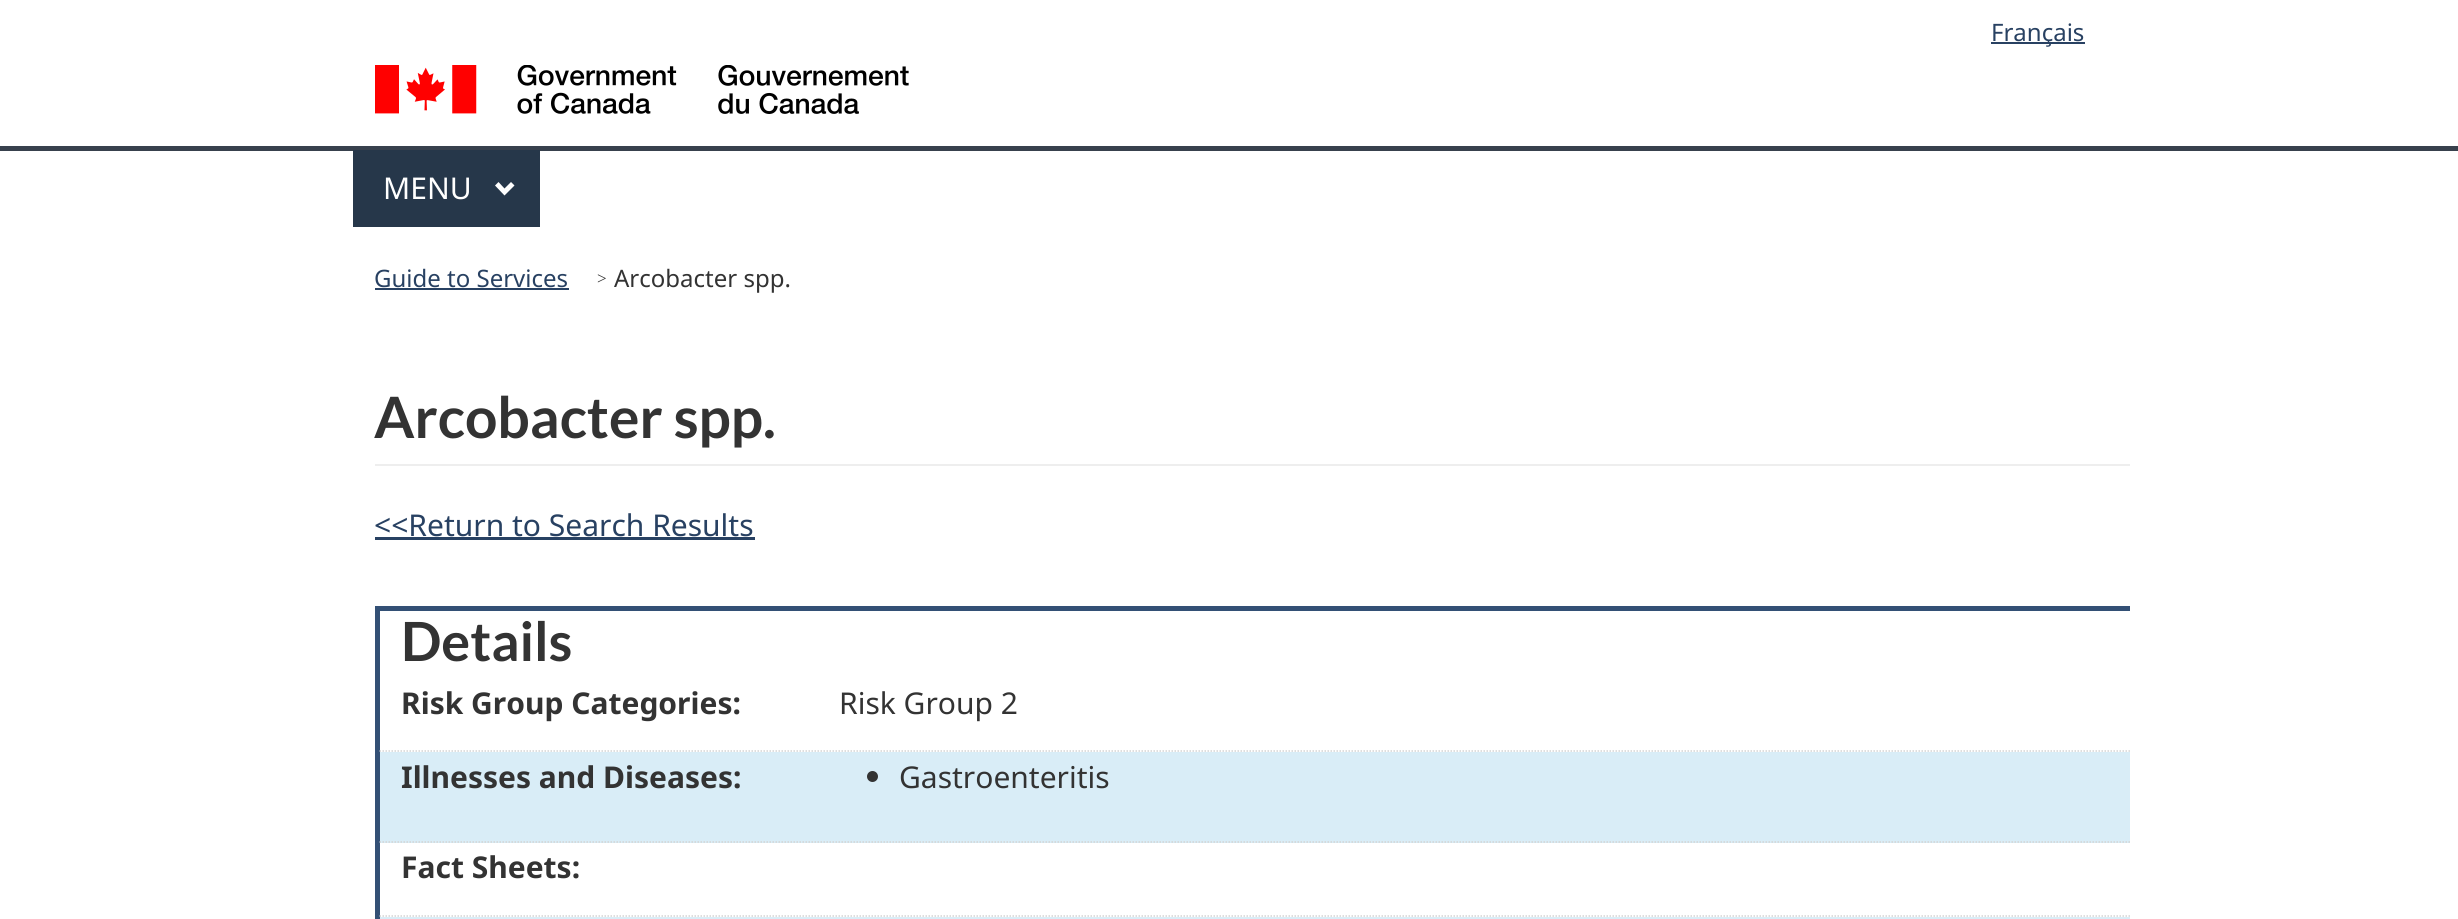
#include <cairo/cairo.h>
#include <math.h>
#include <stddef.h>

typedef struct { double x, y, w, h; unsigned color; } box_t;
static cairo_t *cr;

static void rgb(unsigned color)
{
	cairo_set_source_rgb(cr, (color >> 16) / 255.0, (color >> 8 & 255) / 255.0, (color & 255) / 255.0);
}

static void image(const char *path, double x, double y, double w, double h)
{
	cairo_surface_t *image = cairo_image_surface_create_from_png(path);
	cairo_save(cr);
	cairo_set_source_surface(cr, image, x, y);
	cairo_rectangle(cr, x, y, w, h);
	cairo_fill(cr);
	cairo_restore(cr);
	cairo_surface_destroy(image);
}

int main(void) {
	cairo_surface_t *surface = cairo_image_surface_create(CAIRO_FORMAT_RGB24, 2458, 919);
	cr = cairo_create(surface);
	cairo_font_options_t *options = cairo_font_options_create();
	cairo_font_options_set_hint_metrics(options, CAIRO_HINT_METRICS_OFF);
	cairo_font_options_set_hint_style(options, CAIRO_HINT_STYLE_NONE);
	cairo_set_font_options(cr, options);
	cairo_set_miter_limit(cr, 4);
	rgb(0xffffff);
	cairo_paint(cr);
	rgb(0x284162);
	cairo_rectangle(cr, 1991, 42, 94, 2);
	cairo_fill(cr);
	image("img/1.png", 375, 65, 534, 49);
	rgb(0x38414d);
	cairo_rectangle(cr, 0, 146, 2458, 5);
	cairo_fill(cr);
	rgb(0x26374a);
	cairo_rectangle(cr, 353, 150, 187, 77);
	cairo_fill(cr);
	rgb(0xffffff);
	cairo_new_path(cr);
	cairo_move_to(cr, 514.5, 185.5);
	cairo_line_to(cr, 504.5, 195.5);
	cairo_line_to(cr, 495, 185.5);
	cairo_line_to(cr, 498.5, 182);
	cairo_line_to(cr, 504.5, 188.5);
	cairo_line_to(cr, 511, 182);
	cairo_close_path(cr);
	cairo_fill(cr);
	{
		static const box_t items[] = {
			{375, 288, 194, 2, 0x284162},
			{375, 464, 1755, 2, 0xeeeeee},
			{375, 537, 380, 3, 0x284162},
			{375, 606, 1755, 5, 0x335075},
			{375, 606, 5, 313, 0x335075},
		};
		for (size_t i = 0; i < sizeof items / sizeof *items; i++) {
			rgb(items[i].color);
			cairo_rectangle(cr, items[i].x, items[i].y, items[i].w, items[i].h);
			cairo_fill(cr);
		}
	}
	cairo_new_path(cr);
	cairo_move_to(cr, 379.5, 751);
	cairo_line_to(cr, 2130, 751);
	rgb(0xd3d3d3);
	cairo_set_line_width(cr, 1.5);
	cairo_set_dash(cr, (double[]){1.5, 1.5}, 2, 0);
	cairo_stroke(cr);
	rgb(0xd9edf7);
	cairo_rectangle(cr, 380, 752, 1750, 91);
	cairo_fill(cr);
	cairo_new_path(cr);
	cairo_move_to(cr, 379.5, 842);
	cairo_line_to(cr, 2130, 842);
	rgb(0xd3d3d3);
	cairo_stroke(cr);
	rgb(0x333333);
	cairo_arc(cr, 872.5, 776.5, 5.5, 0, 2 * M_PI);
	cairo_fill(cr);
	cairo_new_path(cr);
	cairo_move_to(cr, 379.5, 916);
	cairo_line_to(cr, 2130, 916);
	rgb(0xd3d3d3);
	cairo_stroke(cr);
	rgb(0xd9edf7);
	cairo_rectangle(cr, 380, 917, 1750, 2);
	cairo_fill(cr);
	cairo_select_font_face(cr, "Noto Sans", CAIRO_FONT_SLANT_NORMAL, CAIRO_FONT_WEIGHT_NORMAL);
	cairo_set_font_size(cr, 24);
	rgb(0x284162);
	cairo_move_to(cr, 1991, 41);
	cairo_show_text(cr, "Français");
	cairo_set_font_size(cr, 30);
	rgb(0xffffff);
	cairo_move_to(cr, 383, 199);
	cairo_show_text(cr, "MENU");
	cairo_set_font_size(cr, 24);
	rgb(0x284162);
	cairo_move_to(cr, 374, 287);
	cairo_show_text(cr, "Guide to Services");
	cairo_select_font_face(cr, "Liberation Serif", CAIRO_FONT_SLANT_NORMAL, CAIRO_FONT_WEIGHT_NORMAL);
	cairo_set_font_size(cr, 17);
	rgb(0x333333);
	cairo_move_to(cr, 597, 284);
	cairo_show_text(cr, ">");
	cairo_select_font_face(cr, "Noto Sans", CAIRO_FONT_SLANT_NORMAL, CAIRO_FONT_WEIGHT_NORMAL);
	cairo_set_font_size(cr, 24);
	cairo_move_to(cr, 614, 287);
	cairo_show_text(cr, "Arcobacter spp.");
	cairo_select_font_face(cr, "Lato", CAIRO_FONT_SLANT_NORMAL, CAIRO_FONT_WEIGHT_BOLD);
	cairo_set_font_size(cr, 57);
	cairo_move_to(cr, 374, 438);
	cairo_show_text(cr, "Arcobacter spp.");
	cairo_select_font_face(cr, "Noto Sans", CAIRO_FONT_SLANT_NORMAL, CAIRO_FONT_WEIGHT_NORMAL);
	cairo_set_font_size(cr, 30);
	rgb(0x284162);
	cairo_move_to(cr, 374, 536);
	cairo_show_text(cr, "<<Return to Search Results");
	cairo_select_font_face(cr, "Lato", CAIRO_FONT_SLANT_NORMAL, CAIRO_FONT_WEIGHT_BOLD);
	cairo_set_font_size(cr, 54);
	rgb(0x333333);
	cairo_move_to(cr, 401, 661);
	cairo_show_text(cr, "Details");
	cairo_select_font_face(cr, "Noto Sans", CAIRO_FONT_SLANT_NORMAL, CAIRO_FONT_WEIGHT_BOLD);
	cairo_set_font_size(cr, 30);
	cairo_move_to(cr, 401, 714);
	cairo_show_text(cr, "Risk Group Categories:");
	cairo_select_font_face(cr, "Noto Sans", CAIRO_FONT_SLANT_NORMAL, CAIRO_FONT_WEIGHT_NORMAL);
	cairo_move_to(cr, 839, 714);
	cairo_show_text(cr, "Risk Group 2");
	cairo_select_font_face(cr, "Noto Sans", CAIRO_FONT_SLANT_NORMAL, CAIRO_FONT_WEIGHT_BOLD);
	cairo_move_to(cr, 401, 788);
	cairo_show_text(cr, "Illnesses and Diseases:");
	cairo_select_font_face(cr, "Noto Sans", CAIRO_FONT_SLANT_NORMAL, CAIRO_FONT_WEIGHT_NORMAL);
	cairo_move_to(cr, 899, 788);
	cairo_show_text(cr, "Gastroenteritis");
	cairo_select_font_face(cr, "Noto Sans", CAIRO_FONT_SLANT_NORMAL, CAIRO_FONT_WEIGHT_BOLD);
	cairo_move_to(cr, 401, 878);
	cairo_show_text(cr, "Fact Sheets:");
	cairo_surface_write_to_png(surface, "page.png");
	cairo_font_options_destroy(options);
	cairo_destroy(cr);
	cairo_surface_destroy(surface);
	return 0;
}
